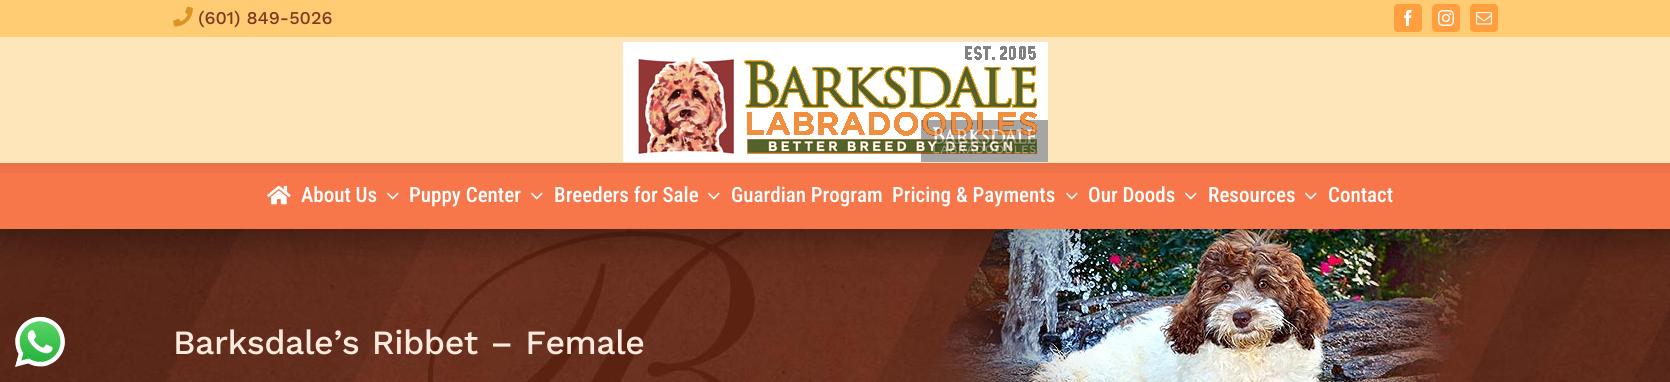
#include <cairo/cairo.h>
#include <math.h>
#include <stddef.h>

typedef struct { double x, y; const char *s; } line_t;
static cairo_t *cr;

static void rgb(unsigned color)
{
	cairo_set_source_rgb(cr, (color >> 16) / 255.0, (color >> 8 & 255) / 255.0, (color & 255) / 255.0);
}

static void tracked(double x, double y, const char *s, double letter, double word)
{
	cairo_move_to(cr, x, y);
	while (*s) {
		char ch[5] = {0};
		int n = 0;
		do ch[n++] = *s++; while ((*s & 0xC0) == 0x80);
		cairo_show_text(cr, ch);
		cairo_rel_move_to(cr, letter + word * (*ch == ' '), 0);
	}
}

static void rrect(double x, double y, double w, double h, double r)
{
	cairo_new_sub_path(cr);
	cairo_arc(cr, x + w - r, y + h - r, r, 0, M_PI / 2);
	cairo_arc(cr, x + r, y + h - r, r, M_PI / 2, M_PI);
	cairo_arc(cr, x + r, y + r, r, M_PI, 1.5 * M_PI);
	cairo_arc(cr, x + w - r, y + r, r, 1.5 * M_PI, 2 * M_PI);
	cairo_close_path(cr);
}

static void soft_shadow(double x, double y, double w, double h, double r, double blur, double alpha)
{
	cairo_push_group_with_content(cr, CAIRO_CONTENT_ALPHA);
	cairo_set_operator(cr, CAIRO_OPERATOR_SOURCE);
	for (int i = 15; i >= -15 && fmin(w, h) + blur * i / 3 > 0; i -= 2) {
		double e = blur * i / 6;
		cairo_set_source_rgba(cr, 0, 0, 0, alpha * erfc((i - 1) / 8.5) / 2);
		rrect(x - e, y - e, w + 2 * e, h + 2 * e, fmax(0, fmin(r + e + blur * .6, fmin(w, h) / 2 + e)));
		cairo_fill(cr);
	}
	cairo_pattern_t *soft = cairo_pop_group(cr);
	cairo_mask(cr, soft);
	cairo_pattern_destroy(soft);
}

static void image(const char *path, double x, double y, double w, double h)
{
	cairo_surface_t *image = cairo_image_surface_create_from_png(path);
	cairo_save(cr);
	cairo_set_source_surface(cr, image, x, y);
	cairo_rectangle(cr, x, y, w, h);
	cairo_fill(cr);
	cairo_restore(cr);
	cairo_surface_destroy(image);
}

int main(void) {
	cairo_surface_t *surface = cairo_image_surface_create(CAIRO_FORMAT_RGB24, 1670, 382);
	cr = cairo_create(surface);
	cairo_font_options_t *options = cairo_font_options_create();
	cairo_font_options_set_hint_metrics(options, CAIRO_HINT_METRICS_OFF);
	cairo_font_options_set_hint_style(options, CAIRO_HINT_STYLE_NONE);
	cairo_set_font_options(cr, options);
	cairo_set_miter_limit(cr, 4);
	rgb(0xffffff);
	cairo_paint(cr);
	image("img/10.png", 0, 229, 1670, 153);
	image("img/1.png", 15, 317, 50, 50);
	rgb(0x000000);
	soft_shadow(2, 12, 1666, 225, 0, 25, 0.14);
	rgb(0xffcc73);
	cairo_rectangle(cr, 0, 0, 1670, 37);
	cairo_fill(cr);
	image("img/2.png", 173, 6, 20, 21);
	rgb(0xff9f40);
	rrect(1394.5, 4.5, 27, 27, 3.5);
	cairo_fill_preserve(cr);
	cairo_set_line_width(cr, 1);
	cairo_stroke(cr);
	image("img/3.png", 1404, 10, 8, 16);
	rrect(1432.5, 4.5, 27, 27, 3.5);
	cairo_fill_preserve(cr);
	cairo_stroke(cr);
	image("img/4.png", 1438, 10, 16, 16);
	rrect(1470.5, 4.5, 27, 27, 3.5);
	cairo_fill_preserve(cr);
	cairo_stroke(cr);
	image("img/5.png", 1476, 12, 16, 13);
	rgb(0xffe6ba);
	cairo_rectangle(cr, 0, 37, 1670, 126);
	cairo_fill(cr);
	image("img/6.png", 623, 42, 425, 120);
	rgb(0xf7764a);
	cairo_rectangle(cr, 0, 163, 1670, 66);
	cairo_fill(cr);
	image("img/7.png", 0, 163, 1670, 10);
	image("img/8.png", 267, 185, 24, 20);
	image("img/9.png", 387, 192, 12, 8);
	image("img/9.png", 531, 192, 12, 8);
	image("img/9.png", 708, 192, 12, 8);
	image("img/9.png", 1066, 192, 12, 8);
	image("img/9.png", 1185, 192, 12, 8);
	image("img/9.png", 1305, 192, 12, 8);
	cairo_select_font_face(cr, "Work Sans Medium", CAIRO_FONT_SLANT_NORMAL, CAIRO_FONT_WEIGHT_NORMAL);
	cairo_set_font_size(cr, 18);
	rgb(0x803820);
	cairo_move_to(cr, 198, 24);
	cairo_show_text(cr, "(601) 849-5026");
	cairo_select_font_face(cr, "Roboto Condensed Medium", CAIRO_FONT_SLANT_NORMAL, CAIRO_FONT_WEIGHT_NORMAL);
	cairo_set_font_size(cr, 21);
	rgb(0xffffff);
	{
		static const line_t items[] = {
			{301, 202, "About Us"},
			{409, 202, "Puppy Center"},
			{554, 202, "Breeders for Sale"},
			{731, 202, "Guardian Program"},
			{892, 202, "Pricing & Payments"},
			{1088, 202, "Our Doods"},
			{1208, 202, "Resources"},
			{1328, 202, "Contact"},
		};
		for (size_t i = 0; i < sizeof items / sizeof *items; i++) {
			cairo_move_to(cr, items[i].x, items[i].y);
			cairo_show_text(cr, items[i].s);
		}
	}
	cairo_select_font_face(cr, "Work Sans Medium", CAIRO_FONT_SLANT_NORMAL, CAIRO_FONT_WEIGHT_NORMAL);
	cairo_set_font_size(cr, 34);
	rgb(0xffebdd);
	tracked(173, 354, "Barksdale’s Ribbet – Female", -0.5, 2);
	cairo_surface_write_to_png(surface, "page.png");
	cairo_font_options_destroy(options);
	cairo_destroy(cr);
	cairo_surface_destroy(surface);
	return 0;
}
